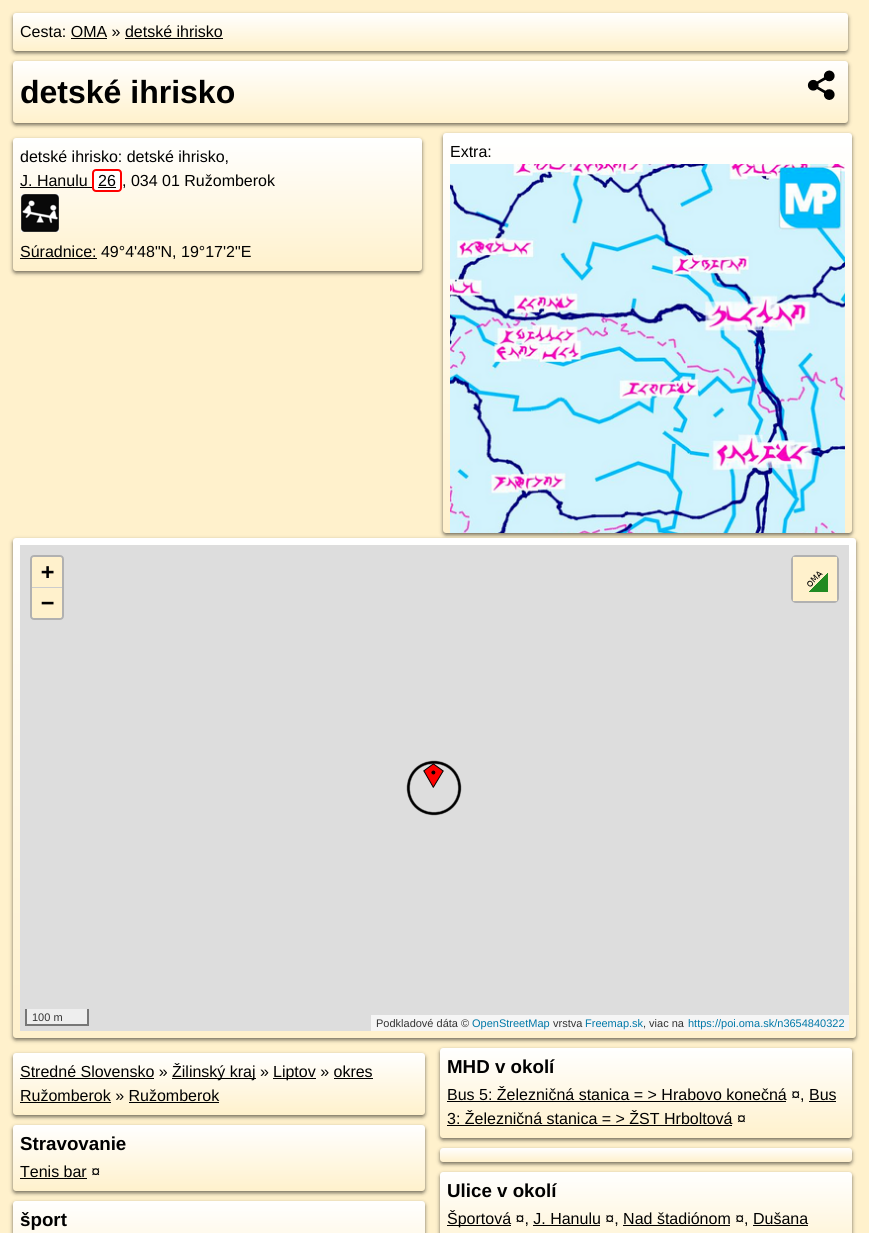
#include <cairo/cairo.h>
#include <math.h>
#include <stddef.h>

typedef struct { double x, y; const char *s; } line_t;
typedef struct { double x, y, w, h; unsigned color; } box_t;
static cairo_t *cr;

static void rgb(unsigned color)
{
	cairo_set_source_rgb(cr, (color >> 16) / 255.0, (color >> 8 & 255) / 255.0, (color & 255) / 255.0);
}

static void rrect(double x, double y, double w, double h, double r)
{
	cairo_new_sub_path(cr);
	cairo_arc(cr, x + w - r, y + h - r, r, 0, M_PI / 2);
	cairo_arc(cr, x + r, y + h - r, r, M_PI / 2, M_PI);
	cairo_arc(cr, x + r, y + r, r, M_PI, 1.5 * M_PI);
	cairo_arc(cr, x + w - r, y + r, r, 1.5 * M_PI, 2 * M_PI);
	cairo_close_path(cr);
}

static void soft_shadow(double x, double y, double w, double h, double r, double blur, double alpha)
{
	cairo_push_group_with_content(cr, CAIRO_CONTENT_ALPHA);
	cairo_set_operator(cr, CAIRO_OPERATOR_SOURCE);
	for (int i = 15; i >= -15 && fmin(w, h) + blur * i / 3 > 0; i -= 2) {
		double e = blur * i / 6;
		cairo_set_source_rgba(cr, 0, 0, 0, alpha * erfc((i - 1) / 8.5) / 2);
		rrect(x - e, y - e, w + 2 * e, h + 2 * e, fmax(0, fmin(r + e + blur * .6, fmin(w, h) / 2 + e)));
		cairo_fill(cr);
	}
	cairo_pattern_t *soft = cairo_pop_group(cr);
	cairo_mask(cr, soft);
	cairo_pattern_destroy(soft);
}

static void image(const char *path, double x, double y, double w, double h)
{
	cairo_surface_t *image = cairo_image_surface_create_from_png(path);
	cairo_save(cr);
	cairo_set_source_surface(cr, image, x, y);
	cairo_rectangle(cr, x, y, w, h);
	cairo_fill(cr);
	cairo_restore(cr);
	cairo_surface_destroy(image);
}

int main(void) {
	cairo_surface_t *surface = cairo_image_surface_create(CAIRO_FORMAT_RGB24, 869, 1233);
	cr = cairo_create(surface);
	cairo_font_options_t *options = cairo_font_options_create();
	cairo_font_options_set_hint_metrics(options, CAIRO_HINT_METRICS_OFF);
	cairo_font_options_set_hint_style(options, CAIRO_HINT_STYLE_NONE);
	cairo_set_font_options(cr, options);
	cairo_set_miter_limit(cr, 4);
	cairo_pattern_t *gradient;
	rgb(0xfff1cc);
	cairo_paint(cr);
	rgb(0x000000);
	soft_shadow(13, 15, 835, 38, 3, 2, 0.55);
	gradient = cairo_pattern_create_linear(431, 13, 431, 51);
	cairo_pattern_add_color_stop_rgba(gradient, 0, 1, 1, 1, 1);
	cairo_pattern_add_color_stop_rgba(gradient, 1, 1, 0.945, 0.8, 1);
	cairo_set_source(cr, gradient);
	cairo_pattern_destroy(gradient);
	rrect(13, 13, 835, 38, 3);
	cairo_fill(cr);
	rgb(0x000000);
	cairo_rectangle(cr, 71, 38, 36, 1);
	cairo_fill(cr);
	cairo_rectangle(cr, 125, 38, 98, 1);
	cairo_fill(cr);
	rgb(0x000000);
	soft_shadow(13, 63, 835, 62, 3, 2, 0.55);
	gradient = cairo_pattern_create_linear(431, 61, 431, 123);
	cairo_pattern_add_color_stop_rgba(gradient, 0, 1, 1, 1, 1);
	cairo_pattern_add_color_stop_rgba(gradient, 1, 1, 0.945, 0.8, 1);
	cairo_set_source(cr, gradient);
	cairo_pattern_destroy(gradient);
	rrect(13, 61, 835, 62, 3);
	cairo_fill(cr);
	image("img/1.png", 807, 70, 28, 30);
	rgb(0x000000);
	soft_shadow(13, 140, 409, 133, 3, 2, 0.55);
	gradient = cairo_pattern_create_linear(218, 138, 218, 271);
	cairo_pattern_add_color_stop_rgba(gradient, 0, 1, 1, 1, 1);
	cairo_pattern_add_color_stop_rgba(gradient, 1, 1, 0.945, 0.8, 1);
	cairo_set_source(cr, gradient);
	cairo_pattern_destroy(gradient);
	rrect(13, 138, 409, 133, 3);
	cairo_fill(cr);
	rgb(0x000000);
	cairo_rectangle(cr, 20, 187, 72, 1);
	cairo_fill(cr);
	rgb(0xffffff);
	rrect(93, 170, 28, 21, 3);
	cairo_fill_preserve(cr);
	rgb(0xff0000);
	cairo_stroke(cr);
	rgb(0x000000);
	cairo_rectangle(cr, 98, 187, 18, 1);
	cairo_fill(cr);
	image("img/2.png", 21, 194, 38, 38);
	cairo_rectangle(cr, 20, 258, 77, 1);
	cairo_fill(cr);
	rgb(0x000000);
	soft_shadow(443, 135, 409, 400, 3, 2, 0.55);
	gradient = cairo_pattern_create_linear(648, 133, 648, 533);
	cairo_pattern_add_color_stop_rgba(gradient, 0, 1, 1, 1, 1);
	cairo_pattern_add_color_stop_rgba(gradient, 1, 1, 0.945, 0.8, 1);
	cairo_set_source(cr, gradient);
	cairo_pattern_destroy(gradient);
	rrect(443, 133, 409, 400, 3);
	cairo_fill(cr);
	image("img/3.png", 450, 164, 395, 369);
	rgb(0x000000);
	soft_shadow(13, 540, 843, 500, 3, 2, 0.55);
	gradient = cairo_pattern_create_linear(434, 538, 435, 1038);
	cairo_pattern_add_color_stop_rgba(gradient, 0, 1, 1, 1, 1);
	cairo_pattern_add_color_stop_rgba(gradient, 1, 1, 0.945, 0.8, 1);
	cairo_set_source(cr, gradient);
	cairo_pattern_destroy(gradient);
	rrect(13, 538, 843, 500, 3);
	cairo_fill(cr);
	rgb(0xdddddd);
	cairo_rectangle(cr, 20, 545, 829, 486);
	cairo_fill(cr);
	rrect(31, 556, 32, 63, 3);
	rgb(0xb1b1b1);
	cairo_stroke(cr);
	rgb(0xfff1cc);
	cairo_new_path(cr);
	cairo_move_to(cr, 34, 557);
	cairo_line_to(cr, 60, 557);
	cairo_curve_to(cr, 61, 557, 62, 558, 62, 559);
	cairo_line_to(cr, 62, 588);
	cairo_line_to(cr, 32, 588);
	cairo_line_to(cr, 32, 559);
	cairo_curve_to(cr, 32, 558, 33, 557, 34, 557);
	cairo_close_path(cr);
	cairo_fill(cr);
	rgb(0xcccccc);
	cairo_rectangle(cr, 32, 587, 30, 1);
	cairo_fill(cr);
	rgb(0xfff1cc);
	cairo_new_path(cr);
	cairo_move_to(cr, 32, 588);
	cairo_line_to(cr, 62, 588);
	cairo_line_to(cr, 62, 616);
	cairo_curve_to(cr, 62, 617, 61, 618, 60, 618);
	cairo_line_to(cr, 34, 618);
	cairo_curve_to(cr, 33, 618, 32, 617, 32, 616);
	cairo_close_path(cr);
	cairo_fill(cr);
	rrect(792, 556, 46, 46, 4);
	rgb(0xb1b1b1);
	cairo_stroke(cr);
	rgb(0xfff1cc);
	cairo_rectangle(cr, 793, 557, 44, 44);
	cairo_fill(cr);
	image("img/4.png", 807, 571, 21, 21);
	{
		static const box_t items[] = {
			{27, 1009, 60, 15, 0xeeeeee},
			{87, 1009, 2, 17, 0x777777},
			{25, 1024, 64, 2, 0x777777},
			{25, 1009, 2, 17, 0x777777},
			{371, 1015, 478, 16, 0xf5f5f5},
		};
		for (size_t i = 0; i < sizeof items / sizeof *items; i++) {
			rgb(items[i].color);
			cairo_rectangle(cr, items[i].x, items[i].y, items[i].w, items[i].h);
			cairo_fill(cr);
		}
	}
	image("img/5.png", 406, 760, 56, 56);
	image("img/6.png", 423, 763, 21, 25);
	rgb(0x000000);
	soft_shadow(13, 1055, 412, 62, 3, 2, 0.55);
	gradient = cairo_pattern_create_linear(219, 1053, 219, 1115);
	cairo_pattern_add_color_stop_rgba(gradient, 0, 1, 1, 1, 1);
	cairo_pattern_add_color_stop_rgba(gradient, 1, 1, 0.945, 0.8, 1);
	cairo_set_source(cr, gradient);
	cairo_pattern_destroy(gradient);
	rrect(13, 1053, 412, 62, 3);
	cairo_fill(cr);
	{
		static const box_t items[] = {
			{20, 1078, 134, 1, 0x000000},
			{172, 1078, 84, 1, 0x000000},
			{273, 1078, 43, 1, 0x000000},
			{334, 1078, 39, 1, 0x000000},
			{20, 1102, 91, 1, 0x000000},
			{129, 1102, 90, 1, 0x000000},
		};
		for (size_t i = 0; i < sizeof items / sizeof *items; i++) {
			rgb(items[i].color);
			cairo_rectangle(cr, items[i].x, items[i].y, items[i].w, items[i].h);
			cairo_fill(cr);
		}
	}
	rgb(0x000000);
	soft_shadow(440, 1050, 412, 90, 3, 2, 0.55);
	gradient = cairo_pattern_create_linear(646, 1048, 646, 1138);
	cairo_pattern_add_color_stop_rgba(gradient, 0, 1, 1, 1, 1);
	cairo_pattern_add_color_stop_rgba(gradient, 1, 1, 0.945, 0.8, 1);
	cairo_set_source(cr, gradient);
	cairo_pattern_destroy(gradient);
	rrect(440, 1048, 412, 90, 3);
	cairo_fill(cr);
	{
		static const box_t items[] = {
			{447, 1101, 339, 1, 0x000000},
			{809, 1101, 27, 1, 0x000000},
			{447, 1125, 285, 1, 0x000000},
		};
		for (size_t i = 0; i < sizeof items / sizeof *items; i++) {
			rgb(items[i].color);
			cairo_rectangle(cr, items[i].x, items[i].y, items[i].w, items[i].h);
			cairo_fill(cr);
		}
	}
	rgb(0x000000);
	soft_shadow(13, 1127, 412, 66, 3, 2, 0.55);
	gradient = cairo_pattern_create_linear(219, 1125, 219, 1191);
	cairo_pattern_add_color_stop_rgba(gradient, 0, 1, 1, 1, 1);
	cairo_pattern_add_color_stop_rgba(gradient, 1, 1, 0.945, 0.8, 1);
	cairo_set_source(cr, gradient);
	cairo_pattern_destroy(gradient);
	rrect(13, 1125, 412, 66, 3);
	cairo_fill(cr);
	rgb(0x000000);
	cairo_rectangle(cr, 20, 1178, 67, 1);
	cairo_fill(cr);
	rgb(0x000000);
	soft_shadow(440, 1150, 412, 14, 3, 2, 0.55);
	gradient = cairo_pattern_create_linear(646, 1148, 646, 1162);
	cairo_pattern_add_color_stop_rgba(gradient, 0, 1, 1, 1, 1);
	cairo_pattern_add_color_stop_rgba(gradient, 1, 1, 0.945, 0.8, 1);
	cairo_set_source(cr, gradient);
	cairo_pattern_destroy(gradient);
	rrect(440, 1148, 412, 14, 3);
	cairo_fill(cr);
	rgb(0x000000);
	soft_shadow(13, 1203, 412, 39, 3, 2, 0.55);
	gradient = cairo_pattern_create_linear(219, 1201, 219, 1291);
	cairo_pattern_add_color_stop_rgba(gradient, 0, 1, 1, 1, 1);
	cairo_pattern_add_color_stop_rgba(gradient, 1, 1, 0.945, 0.8, 1);
	cairo_set_source(cr, gradient);
	cairo_pattern_destroy(gradient);
	rrect(13, 1201, 412, 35, 3);
	cairo_fill(cr);
	rgb(0x000000);
	soft_shadow(440, 1174, 412, 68, 3, 2, 0.55);
	gradient = cairo_pattern_create_linear(646, 1172, 646, 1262);
	cairo_pattern_add_color_stop_rgba(gradient, 0, 1, 1, 1, 1);
	cairo_pattern_add_color_stop_rgba(gradient, 1, 1, 0.945, 0.8, 1);
	cairo_set_source(cr, gradient);
	cairo_pattern_destroy(gradient);
	rrect(440, 1172, 412, 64, 3);
	cairo_fill(cr);
	{
		static const box_t items[] = {
			{447, 1225, 64, 1, 0x000000},
			{533, 1225, 67, 1, 0x000000},
			{623, 1225, 107, 1, 0x000000},
			{753, 1225, 55, 1, 0x000000},
		};
		for (size_t i = 0; i < sizeof items / sizeof *items; i++) {
			rgb(items[i].color);
			cairo_rectangle(cr, items[i].x, items[i].y, items[i].w, items[i].h);
			cairo_fill(cr);
		}
	}
	cairo_select_font_face(cr, "Liberation Sans", CAIRO_FONT_SLANT_NORMAL, CAIRO_FONT_WEIGHT_NORMAL);
	cairo_set_font_size(cr, 16);
	cairo_move_to(cr, 20, 37);
	cairo_show_text(cr, "Cesta: OMA » detské ihrisko");
	cairo_select_font_face(cr, "Liberation Sans", CAIRO_FONT_SLANT_NORMAL, CAIRO_FONT_WEIGHT_BOLD);
	cairo_set_font_size(cr, 32);
	cairo_move_to(cr, 20, 103);
	cairo_show_text(cr, "detské ihrisko");
	cairo_select_font_face(cr, "Liberation Sans", CAIRO_FONT_SLANT_NORMAL, CAIRO_FONT_WEIGHT_NORMAL);
	cairo_set_font_size(cr, 16);
	{
		static const line_t items[] = {
			{20, 162, "detské ihrisko: detské ihrisko,"},
			{20, 186, "J. Hanulu"},
			{98, 186, "26"},
			{122, 186, ", 034 01 Ružomberok"},
			{20, 257, "Súradnice: 49°4'48\"N, 19°17'2\"E"},
			{450, 157, "Extra:"},
		};
		for (size_t i = 0; i < sizeof items / sizeof *items; i++) {
			cairo_move_to(cr, items[i].x, items[i].y);
			cairo_show_text(cr, items[i].s);
		}
	}
	cairo_select_font_face(cr, "DejaVu Sans Mono", CAIRO_FONT_SLANT_NORMAL, CAIRO_FONT_WEIGHT_BOLD);
	cairo_set_font_size(cr, 22);
	cairo_move_to(cr, 41, 579);
	cairo_show_text(cr, "+");
	cairo_move_to(cr, 41, 610);
	cairo_show_text(cr, "−");
	cairo_select_font_face(cr, "Liberation Sans", CAIRO_FONT_SLANT_NORMAL, CAIRO_FONT_WEIGHT_NORMAL);
	cairo_set_font_size(cr, 11);
	rgb(0x333333);
	cairo_move_to(cr, 32, 1021);
	cairo_show_text(cr, "100 m");
	cairo_move_to(cr, 376, 1027);
	cairo_show_text(cr, "Podkladové dáta ©");
	rgb(0x0078a8);
	cairo_move_to(cr, 472, 1027);
	cairo_show_text(cr, "OpenStreetMap");
	rgb(0x333333);
	cairo_move_to(cr, 553, 1027);
	cairo_show_text(cr, "vrstva");
	rgb(0x0078a8);
	cairo_move_to(cr, 585, 1027);
	cairo_show_text(cr, "Freemap.sk");
	rgb(0x333333);
	cairo_move_to(cr, 643, 1027);
	cairo_show_text(cr, ", viac na");
	rgb(0x0078a8);
	cairo_move_to(cr, 688, 1027);
	cairo_show_text(cr, "https://poi.oma.sk/n3654840322");
	cairo_set_font_size(cr, 16);
	rgb(0x000000);
	{
		static const line_t items[] = {
			{20, 1077, "Stredné Slovensko »"},
			{172, 1077, "Žilinský kraj »"},
			{273, 1077, "Liptov » okres"},
			{20, 1101, "Ružomberok » Ružomberok"},
		};
		for (size_t i = 0; i < sizeof items / sizeof *items; i++) {
			cairo_move_to(cr, items[i].x, items[i].y);
			cairo_show_text(cr, items[i].s);
		}
	}
	cairo_select_font_face(cr, "Liberation Sans", CAIRO_FONT_SLANT_NORMAL, CAIRO_FONT_WEIGHT_BOLD);
	cairo_set_font_size(cr, 18.75);
	cairo_move_to(cr, 447, 1073);
	cairo_show_text(cr, "MHD v okolí");
	cairo_select_font_face(cr, "Liberation Sans", CAIRO_FONT_SLANT_NORMAL, CAIRO_FONT_WEIGHT_NORMAL);
	cairo_set_font_size(cr, 16);
	cairo_move_to(cr, 447, 1100);
	cairo_show_text(cr, "Bus 5: Železničná stanica = > Hrabovo konečná ¤, Bus");
	cairo_move_to(cr, 447, 1124);
	cairo_show_text(cr, "3: Železničná stanica = > ŽST Hrboltová ¤");
	cairo_select_font_face(cr, "Liberation Sans", CAIRO_FONT_SLANT_NORMAL, CAIRO_FONT_WEIGHT_BOLD);
	cairo_set_font_size(cr, 18.75);
	cairo_move_to(cr, 20, 1150);
	cairo_show_text(cr, "Stravovanie");
	cairo_select_font_face(cr, "Liberation Sans", CAIRO_FONT_SLANT_NORMAL, CAIRO_FONT_WEIGHT_NORMAL);
	cairo_set_font_size(cr, 16);
	cairo_move_to(cr, 20, 1177);
	cairo_show_text(cr, "Tenis bar ¤");
	cairo_select_font_face(cr, "Liberation Sans", CAIRO_FONT_SLANT_NORMAL, CAIRO_FONT_WEIGHT_BOLD);
	cairo_set_font_size(cr, 18.75);
	cairo_move_to(cr, 20, 1226);
	cairo_show_text(cr, "šport");
	cairo_move_to(cr, 447, 1197);
	cairo_show_text(cr, "Ulice v okolí");
	cairo_select_font_face(cr, "Liberation Sans", CAIRO_FONT_SLANT_NORMAL, CAIRO_FONT_WEIGHT_NORMAL);
	cairo_set_font_size(cr, 16);
	cairo_move_to(cr, 447, 1224);
	cairo_show_text(cr, "Športová ¤, J. Hanulu ¤, Nad štadiónom ¤, Dušana");
	cairo_surface_write_to_png(surface, "page.png");
	cairo_font_options_destroy(options);
	cairo_destroy(cr);
	cairo_surface_destroy(surface);
	return 0;
}
